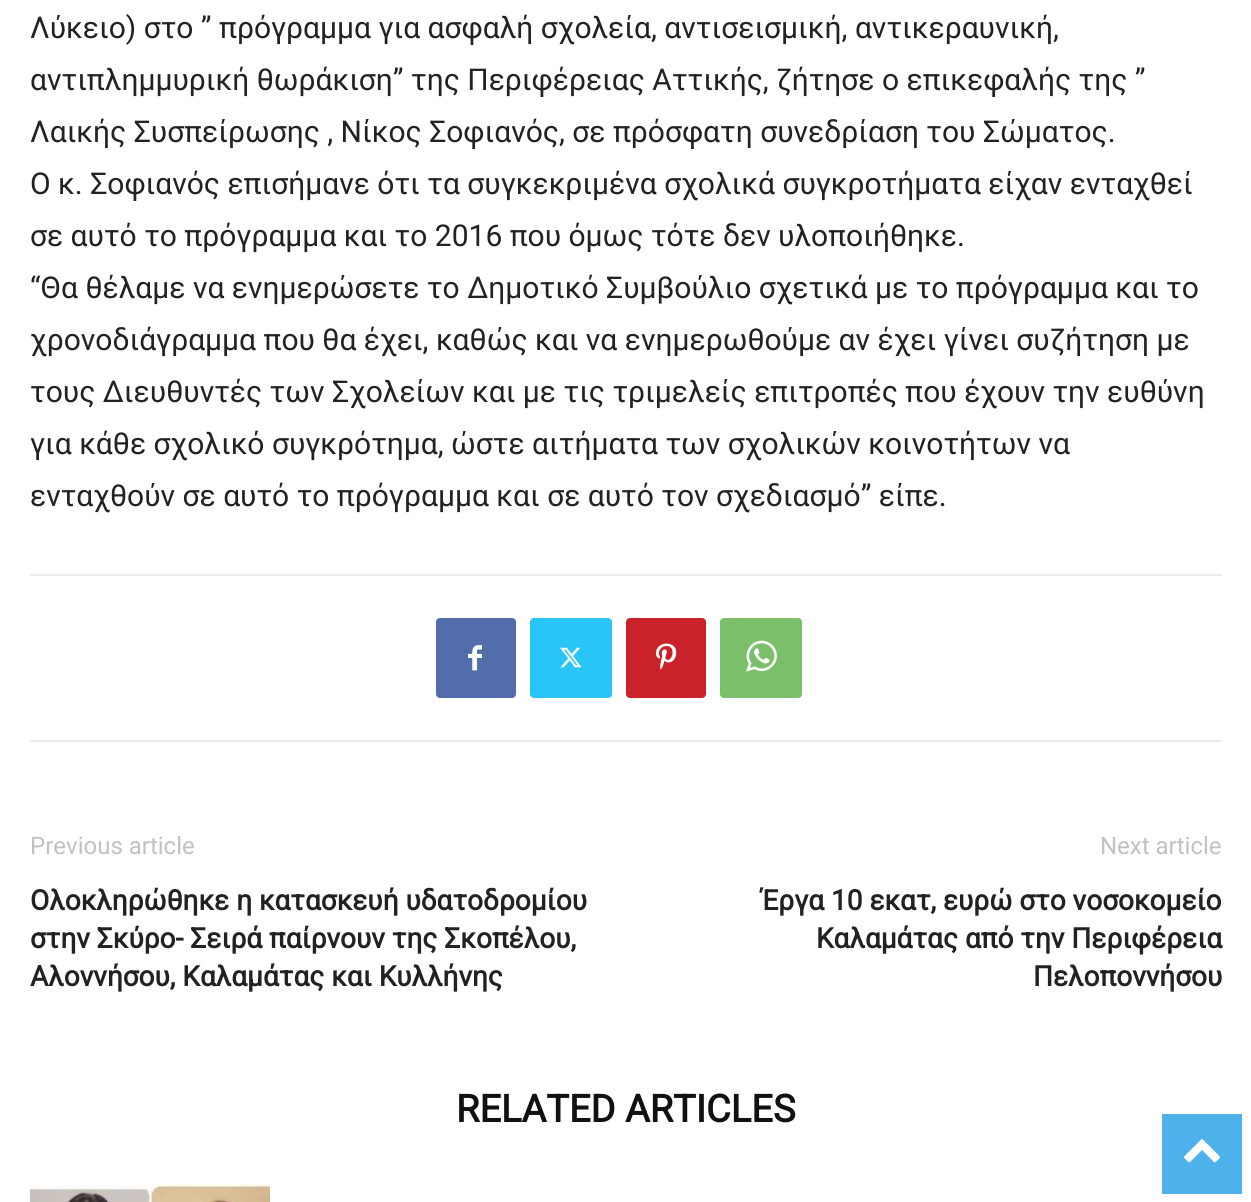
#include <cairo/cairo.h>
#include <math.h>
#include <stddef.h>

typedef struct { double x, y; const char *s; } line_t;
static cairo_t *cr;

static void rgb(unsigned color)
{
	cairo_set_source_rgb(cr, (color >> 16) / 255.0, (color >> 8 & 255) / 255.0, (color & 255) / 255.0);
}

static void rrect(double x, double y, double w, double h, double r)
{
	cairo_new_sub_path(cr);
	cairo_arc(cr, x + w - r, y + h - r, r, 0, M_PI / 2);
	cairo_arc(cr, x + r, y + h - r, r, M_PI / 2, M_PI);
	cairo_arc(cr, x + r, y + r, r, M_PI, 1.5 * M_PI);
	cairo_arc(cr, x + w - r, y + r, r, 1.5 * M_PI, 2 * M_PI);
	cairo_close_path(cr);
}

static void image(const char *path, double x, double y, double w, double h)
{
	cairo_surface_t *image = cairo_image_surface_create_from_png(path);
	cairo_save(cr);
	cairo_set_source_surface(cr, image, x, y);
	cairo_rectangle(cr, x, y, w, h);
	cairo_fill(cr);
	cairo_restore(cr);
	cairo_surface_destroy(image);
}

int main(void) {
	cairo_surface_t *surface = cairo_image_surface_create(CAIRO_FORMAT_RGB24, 1251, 1202);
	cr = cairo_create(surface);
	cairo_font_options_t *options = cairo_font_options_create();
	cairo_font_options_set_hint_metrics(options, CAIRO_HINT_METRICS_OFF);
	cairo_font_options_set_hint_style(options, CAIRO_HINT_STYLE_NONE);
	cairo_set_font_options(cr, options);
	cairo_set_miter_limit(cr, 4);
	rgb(0xffffff);
	cairo_paint(cr);
	rgb(0xededed);
	cairo_rectangle(cr, 30, 574, 1192, 2);
	cairo_fill(cr);
	cairo_rectangle(cr, 30, 740, 1192, 2);
	cairo_fill(cr);
	rgb(0x516eab);
	rrect(436, 618, 80, 80, 4);
	cairo_fill(cr);
	image("img/1.png", 468, 645, 14, 26);
	rgb(0x29c5f6);
	rrect(530, 618, 82, 80, 4);
	cairo_fill(cr);
	image("img/2.png", 560, 647, 22, 21);
	rgb(0xca212a);
	rrect(626, 618, 80, 80, 4);
	cairo_fill(cr);
	image("img/3.png", 656, 643, 21, 27);
	rgb(0x7bbf6a);
	rrect(720, 618, 82, 80, 4);
	cairo_fill(cr);
	image("img/4.png", 746, 640, 31, 32);
	image("img/5.png", 30, 1184, 240, 18);
	rgb(0x4db2ec);
	cairo_rectangle(cr, 1162, 1114, 80, 80);
	cairo_fill(cr);
	image("img/6.png", 1184, 1139, 36, 24);
	cairo_select_font_face(cr, "Roboto", CAIRO_FONT_SLANT_NORMAL, CAIRO_FONT_WEIGHT_NORMAL);
	cairo_set_font_size(cr, 30);
	rgb(0x222222);
	{
		static const line_t items[] = {
			{30, 38, "Λύκειο) στο ” πρόγραμμα για ασφαλή σχολεία, αντισεισμική, αντικεραυνική,"},
			{30, 90, "αντιπλημμυρική θωράκιση” της Περιφέρειας Αττικής, ζήτησε ο επικεφαλής της ”"},
			{30, 142, "Λαικής Συσπείρωσης , Νίκος Σοφιανός, σε πρόσφατη συνεδρίαση του Σώματος."},
			{30, 194, "Ο κ. Σοφιανός επισήμανε ότι τα συγκεκριμένα σχολικά συγκροτήματα είχαν ενταχθεί"},
			{30, 246, "σε αυτό το πρόγραμμα και το 2016 που όμως τότε δεν υλοποιήθηκε."},
			{30, 298, "“Θα θέλαμε να ενημερώσετε το Δημοτικό Συμβούλιο σχετικά με το πρόγραμμα και το"},
			{30, 350, "χρονοδιάγραμμα που θα έχει, καθώς και να ενημερωθούμε αν έχει γίνει συζήτηση με"},
			{30, 402, "τους Διευθυντές των Σχολείων και με τις τριμελείς επιτροπές που έχουν την ευθύνη"},
			{30, 454, "για κάθε σχολικό συγκρότημα, ώστε αιτήματα των σχολικών κοινοτήτων να"},
			{30, 506, "ενταχθούν σε αυτό το πρόγραμμα και σε αυτό τον σχεδιασμό” είπε."},
		};
		for (size_t i = 0; i < sizeof items / sizeof *items; i++) {
			cairo_move_to(cr, items[i].x, items[i].y);
			cairo_show_text(cr, items[i].s);
		}
	}
	cairo_set_font_size(cr, 24);
	rgb(0xc1c1c1);
	cairo_move_to(cr, 30, 854);
	cairo_show_text(cr, "Previous article");
	cairo_select_font_face(cr, "Roboto", CAIRO_FONT_SLANT_NORMAL, CAIRO_FONT_WEIGHT_BOLD);
	cairo_set_font_size(cr, 28);
	rgb(0x222222);
	{
		static const line_t items[] = {
			{30, 910, "Ολοκληρώθηκε η κατασκευή υδατοδρομίου"},
			{30, 948, "στην Σκύρο- Σειρά παίρνουν της Σκοπέλου,"},
			{30, 986, "Αλοννήσου, Καλαμάτας και Κυλλήνης"},
		};
		for (size_t i = 0; i < sizeof items / sizeof *items; i++) {
			cairo_move_to(cr, items[i].x, items[i].y);
			cairo_show_text(cr, items[i].s);
		}
	}
	cairo_select_font_face(cr, "Roboto", CAIRO_FONT_SLANT_NORMAL, CAIRO_FONT_WEIGHT_NORMAL);
	cairo_set_font_size(cr, 24);
	rgb(0xc1c1c1);
	cairo_move_to(cr, 1100, 854);
	cairo_show_text(cr, "Next article");
	cairo_select_font_face(cr, "Roboto", CAIRO_FONT_SLANT_NORMAL, CAIRO_FONT_WEIGHT_BOLD);
	cairo_set_font_size(cr, 28);
	rgb(0x222222);
	{
		static const line_t items[] = {
			{761, 910, "Έργα 10 εκατ, ευρώ στο νοσοκομείο"},
			{816, 948, "Καλαμάτας από την Περιφέρεια"},
			{1033, 986, "Πελοποννήσου"},
		};
		for (size_t i = 0; i < sizeof items / sizeof *items; i++) {
			cairo_move_to(cr, items[i].x, items[i].y);
			cairo_show_text(cr, items[i].s);
		}
	}
	cairo_set_font_size(cr, 38);
	rgb(0x111111);
	cairo_move_to(cr, 456, 1122);
	cairo_show_text(cr, "RELATED ARTICLES");
	cairo_surface_write_to_png(surface, "page.png");
	cairo_font_options_destroy(options);
	cairo_destroy(cr);
	cairo_surface_destroy(surface);
	return 0;
}
